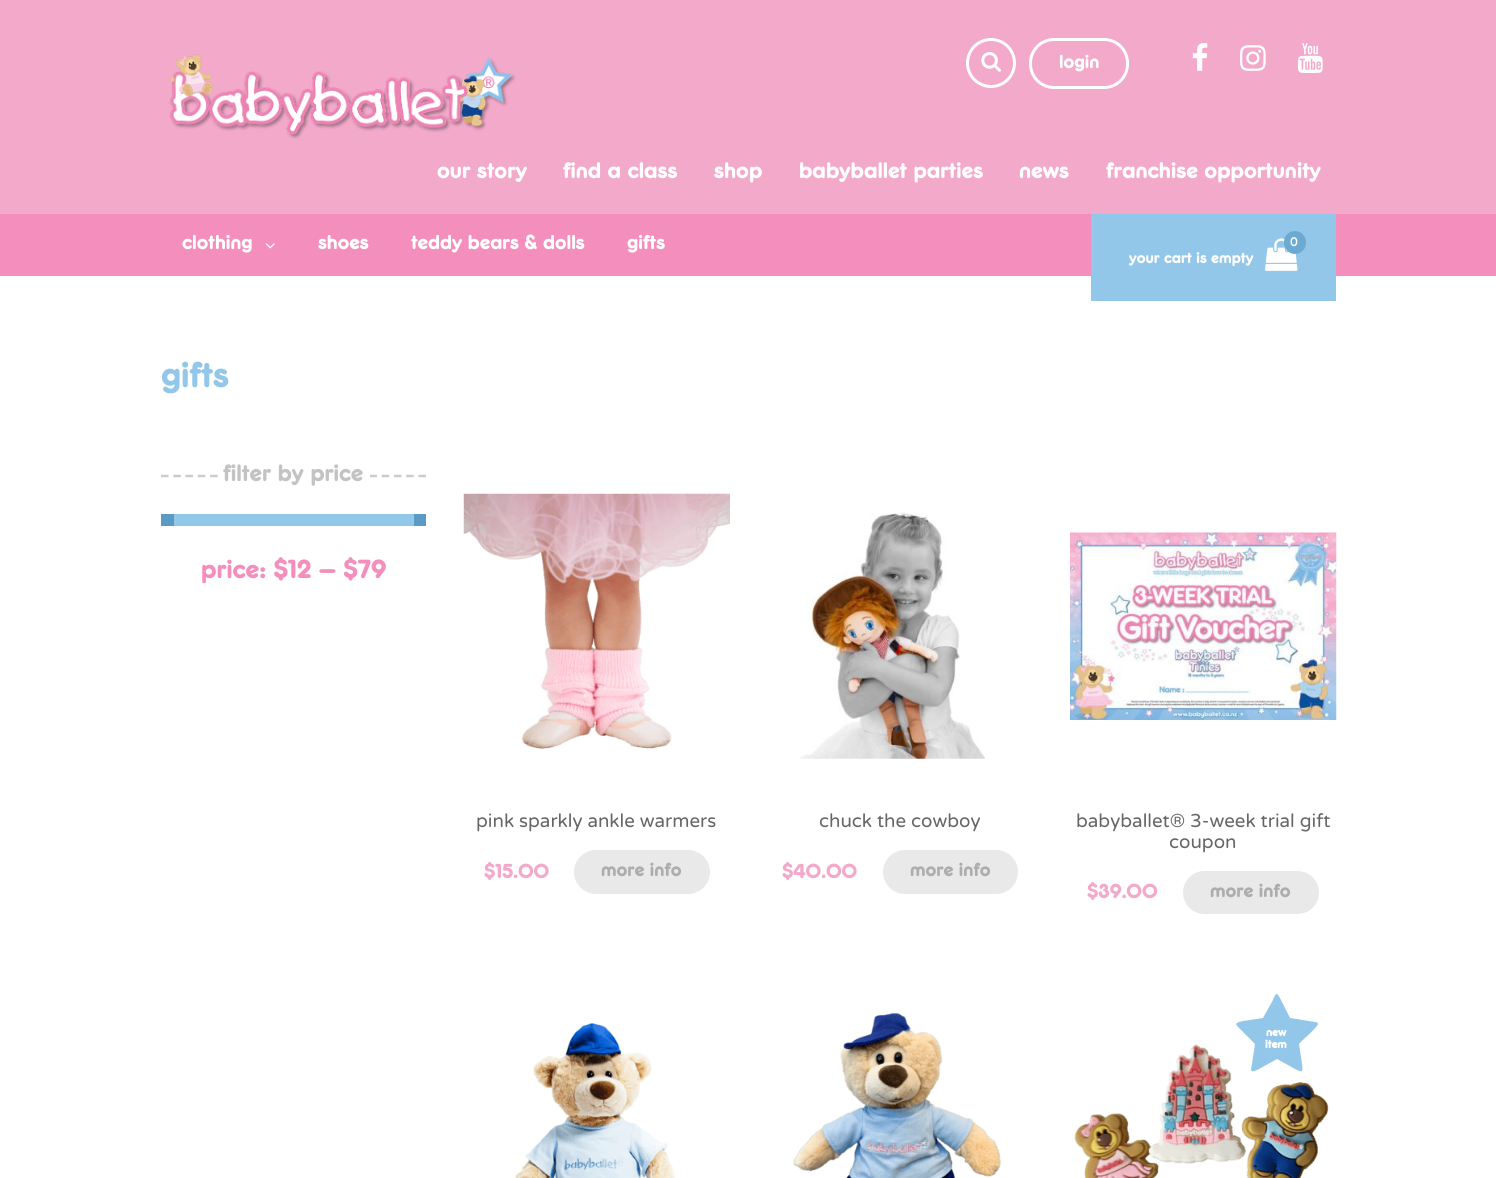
#include <cairo/cairo.h>
#include <math.h>
#include <stddef.h>

typedef struct { double x, y; const char *s; } line_t;
typedef struct { double x, y, w, h; unsigned color; } box_t;
static cairo_t *cr;

static void rgb(unsigned color)
{
	cairo_set_source_rgb(cr, (color >> 16) / 255.0, (color >> 8 & 255) / 255.0, (color & 255) / 255.0);
}

static void rrect(double x, double y, double w, double h, double r)
{
	cairo_new_sub_path(cr);
	cairo_arc(cr, x + w - r, y + h - r, r, 0, M_PI / 2);
	cairo_arc(cr, x + r, y + h - r, r, M_PI / 2, M_PI);
	cairo_arc(cr, x + r, y + r, r, M_PI, 1.5 * M_PI);
	cairo_arc(cr, x + w - r, y + r, r, 1.5 * M_PI, 2 * M_PI);
	cairo_close_path(cr);
}

static void image(const char *path, double x, double y, double w, double h)
{
	cairo_surface_t *image = cairo_image_surface_create_from_png(path);
	cairo_save(cr);
	cairo_set_source_surface(cr, image, x, y);
	cairo_rectangle(cr, x, y, w, h);
	cairo_fill(cr);
	cairo_restore(cr);
	cairo_surface_destroy(image);
}

int main(void) {
	cairo_surface_t *surface = cairo_image_surface_create(CAIRO_FORMAT_RGB24, 1496, 1178);
	cr = cairo_create(surface);
	cairo_font_options_t *options = cairo_font_options_create();
	cairo_font_options_set_hint_metrics(options, CAIRO_HINT_METRICS_OFF);
	cairo_font_options_set_hint_style(options, CAIRO_HINT_STYLE_NONE);
	cairo_set_font_options(cr, options);
	cairo_set_miter_limit(cr, 4);
	rgb(0xffffff);
	cairo_paint(cr);
	rgb(0xf3a9ca);
	cairo_rectangle(cr, 0, 0, 1496, 214);
	cairo_fill(cr);
	cairo_arc(cr, 991, 63, 23.5, 0, 2 * M_PI);
	rgb(0xffffff);
	cairo_set_line_width(cr, 3);
	cairo_stroke(cr);
	image("img/1.png", 981, 52, 20, 20);
	rrect(1030.5, 39.5, 97, 48, 23.5);
	cairo_stroke(cr);
	image("img/2.png", 1192, 43, 16, 28);
	image("img/3.png", 1240, 45, 26, 26);
	image("img/4.png", 1298, 43, 25, 30);
	image("img/5.png", 169, 54, 347, 85);
	rgb(0xf48ebc);
	cairo_rectangle(cr, 0, 214, 1496, 62);
	cairo_fill(cr);
	image("img/6.png", 265, 243, 10, 6);
	rgb(0x93c7e9);
	cairo_rectangle(cr, 1091, 214, 245, 87);
	cairo_fill(cr);
	image("img/7.png", 1265, 238, 33, 33);
	rgb(0x6daad2);
	rrect(1284, 231, 22, 23, 11);
	cairo_fill(cr);
	cairo_new_path(cr);
	cairo_move_to(cr, 161, 476);
	cairo_line_to(cr, 426, 476);
	rgb(0xcccccc);
	cairo_set_line_width(cr, 2.5);
	cairo_set_dash(cr, (double[]){7.5, 4.76}, 2, 0);
	cairo_stroke(cr);
	{
		static const box_t items[] = {
			{222, 474, 148, 4, 0xffffff},
			{161, 514, 13, 12, 0x5b9ac3},
			{174, 514, 240, 12, 0x93c7e9},
			{414, 514, 12, 12, 0x5b9ac3},
		};
		for (size_t i = 0; i < sizeof items / sizeof *items; i++) {
			rgb(items[i].color);
			cairo_rectangle(cr, items[i].x, items[i].y, items[i].w, items[i].h);
			cairo_fill(cr);
		}
	}
	image("img/8.png", 463, 493, 267, 256);
	rgb(0xe9e9e9);
	rrect(574, 850, 136, 44, 22);
	cairo_fill(cr);
	image("img/9.png", 800, 512, 185, 247);
	rrect(883, 850, 135, 44, 22);
	cairo_fill(cr);
	image("img/10.png", 1070, 532, 267, 188);
	rrect(1183, 871, 136, 43, 21.5);
	cairo_fill(cr);
	image("img/11.png", 515, 1023, 160, 155);
	image("img/12.png", 793, 1012, 208, 166);
	image("img/13.png", 1074, 1044, 255, 134);
	rgb(0x93c7e9);
	cairo_new_path(cr);
	cairo_move_to(cr, 1318, 1024);
	cairo_curve_to(cr, 1318, 1027, 1301, 1041, 1299, 1044);
	cairo_line_to(cr, 1302, 1064);
	cairo_curve_to(cr, 1303, 1072, 1303, 1073, 1295, 1069);
	cairo_line_to(cr, 1277, 1059);
	cairo_line_to(cr, 1259, 1069);
	cairo_curve_to(cr, 1251, 1073, 1250, 1072, 1252, 1064);
	cairo_line_to(cr, 1255, 1044);
	cairo_line_to(cr, 1240, 1029);
	cairo_curve_to(cr, 1235, 1024, 1234, 1023, 1243, 1021);
	cairo_line_to(cr, 1263, 1018);
	cairo_line_to(cr, 1273, 1000);
	cairo_curve_to(cr, 1276, 992, 1277, 992, 1281, 1000);
	cairo_line_to(cr, 1290, 1018);
	cairo_line_to(cr, 1315, 1022);
	cairo_curve_to(cr, 1317, 1022, 1318, 1023, 1318, 1024);
	cairo_close_path(cr);
	cairo_fill(cr);
	cairo_select_font_face(cr, "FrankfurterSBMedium", CAIRO_FONT_SLANT_NORMAL, CAIRO_FONT_WEIGHT_NORMAL);
	cairo_set_font_size(cr, 20);
	rgb(0xffffff);
	cairo_move_to(cr, 1059, 68);
	cairo_show_text(cr, "login");
	cairo_set_font_size(cr, 23.75);
	{
		static const line_t items[] = {
			{437, 178, "our story"},
			{563, 178, "find a class"},
			{714, 178, "shop"},
			{799, 178, "babyballet parties"},
			{1019, 178, "news"},
			{1106, 178, "franchise opportunity"},
		};
		for (size_t i = 0; i < sizeof items / sizeof *items; i++) {
			cairo_move_to(cr, items[i].x, items[i].y);
			cairo_show_text(cr, items[i].s);
		}
	}
	cairo_set_font_size(cr, 21.25);
	{
		static const line_t items[] = {
			{182, 249, "clothing"},
			{318, 249, "shoes"},
			{411, 249, "teddy bears & dolls"},
			{627, 249, "gifts"},
		};
		for (size_t i = 0; i < sizeof items / sizeof *items; i++) {
			cairo_move_to(cr, items[i].x, items[i].y);
			cairo_show_text(cr, items[i].s);
		}
	}
	cairo_select_font_face(cr, "Varela Round", CAIRO_FONT_SLANT_NORMAL, CAIRO_FONT_WEIGHT_BOLD);
	cairo_set_font_size(cr, 12);
	cairo_move_to(cr, 1290, 246);
	cairo_show_text(cr, "0");
	cairo_select_font_face(cr, "FrankfurterSBMedium", CAIRO_FONT_SLANT_NORMAL, CAIRO_FONT_WEIGHT_NORMAL);
	cairo_set_font_size(cr, 16.25);
	cairo_move_to(cr, 1129, 263);
	cairo_show_text(cr, "your cart is empty");
	cairo_set_font_size(cr, 38);
	rgb(0x93c7e9);
	cairo_move_to(cr, 161, 387);
	cairo_show_text(cr, "gifts");
	cairo_set_font_size(cr, 25);
	rgb(0xc3c3c3);
	cairo_move_to(cr, 223, 481);
	cairo_show_text(cr, "filter by price");
	cairo_set_font_size(cr, 27.5);
	rgb(0xf48ebc);
	cairo_move_to(cr, 201, 578);
	cairo_show_text(cr, "price: $12 — $79");
	cairo_select_font_face(cr, "Varela Round", CAIRO_FONT_SLANT_NORMAL, CAIRO_FONT_WEIGHT_NORMAL);
	cairo_set_font_size(cr, 18.75);
	rgb(0x666666);
	cairo_move_to(cr, 476, 827);
	cairo_show_text(cr, "pink sparkly ankle warmers");
	cairo_select_font_face(cr, "FrankfurterSBMedium", CAIRO_FONT_SLANT_NORMAL, CAIRO_FONT_WEIGHT_NORMAL);
	cairo_set_font_size(cr, 21.25);
	rgb(0xf3a9ca);
	cairo_move_to(cr, 484, 878);
	cairo_show_text(cr, "$15.00");
	cairo_set_font_size(cr, 20);
	rgb(0xaeadad);
	cairo_move_to(cr, 601, 876);
	cairo_show_text(cr, "more info");
	cairo_select_font_face(cr, "Varela Round", CAIRO_FONT_SLANT_NORMAL, CAIRO_FONT_WEIGHT_NORMAL);
	cairo_set_font_size(cr, 18.75);
	rgb(0x666666);
	cairo_move_to(cr, 819, 827);
	cairo_show_text(cr, "chuck the cowboy");
	cairo_select_font_face(cr, "FrankfurterSBMedium", CAIRO_FONT_SLANT_NORMAL, CAIRO_FONT_WEIGHT_NORMAL);
	cairo_set_font_size(cr, 21.25);
	rgb(0xf3a9ca);
	cairo_move_to(cr, 782, 878);
	cairo_show_text(cr, "$40.00");
	cairo_set_font_size(cr, 20);
	rgb(0xaeadad);
	cairo_move_to(cr, 910, 876);
	cairo_show_text(cr, "more info");
	cairo_select_font_face(cr, "Varela Round", CAIRO_FONT_SLANT_NORMAL, CAIRO_FONT_WEIGHT_NORMAL);
	cairo_set_font_size(cr, 18.75);
	rgb(0x666666);
	cairo_move_to(cr, 1076, 827);
	cairo_show_text(cr, "babyballet® 3-week trial gift");
	cairo_move_to(cr, 1169, 848);
	cairo_show_text(cr, "coupon");
	cairo_select_font_face(cr, "FrankfurterSBMedium", CAIRO_FONT_SLANT_NORMAL, CAIRO_FONT_WEIGHT_NORMAL);
	cairo_set_font_size(cr, 21.25);
	rgb(0xf3a9ca);
	cairo_move_to(cr, 1087, 898);
	cairo_show_text(cr, "$39.00");
	cairo_set_font_size(cr, 20);
	rgb(0xaeadad);
	cairo_move_to(cr, 1210, 897);
	cairo_show_text(cr, "more info");
	cairo_select_font_face(cr, "FrankfurterSBMedium", CAIRO_FONT_SLANT_NORMAL, CAIRO_FONT_WEIGHT_BOLD);
	cairo_set_font_size(cr, 12);
	rgb(0xffffff);
	cairo_move_to(cr, 1266, 1036);
	cairo_show_text(cr, "new");
	cairo_move_to(cr, 1265, 1048);
	cairo_show_text(cr, "item");
	cairo_surface_write_to_png(surface, "page.png");
	cairo_font_options_destroy(options);
	cairo_destroy(cr);
	cairo_surface_destroy(surface);
	return 0;
}
